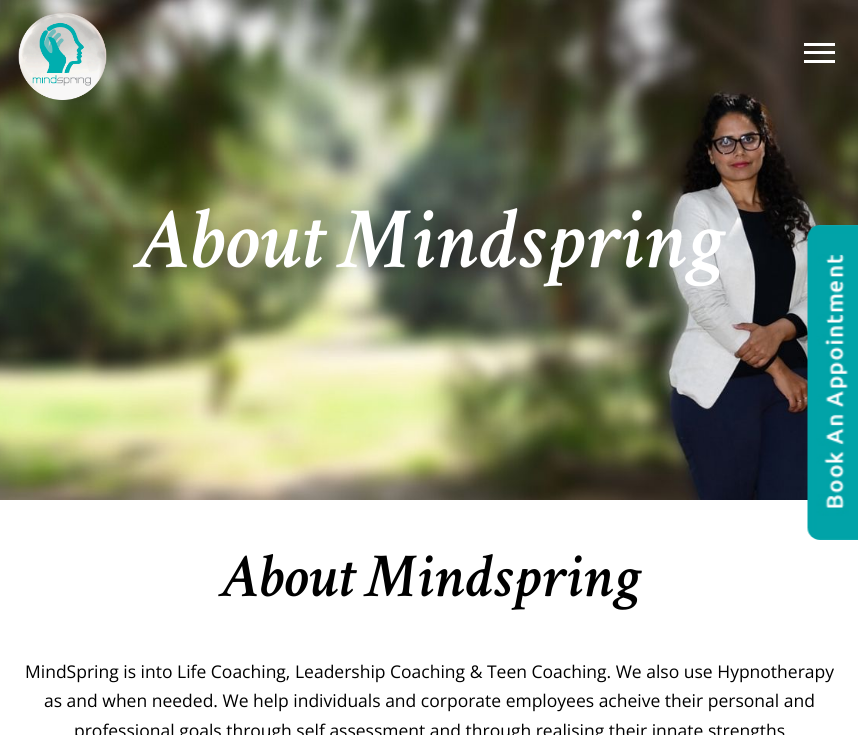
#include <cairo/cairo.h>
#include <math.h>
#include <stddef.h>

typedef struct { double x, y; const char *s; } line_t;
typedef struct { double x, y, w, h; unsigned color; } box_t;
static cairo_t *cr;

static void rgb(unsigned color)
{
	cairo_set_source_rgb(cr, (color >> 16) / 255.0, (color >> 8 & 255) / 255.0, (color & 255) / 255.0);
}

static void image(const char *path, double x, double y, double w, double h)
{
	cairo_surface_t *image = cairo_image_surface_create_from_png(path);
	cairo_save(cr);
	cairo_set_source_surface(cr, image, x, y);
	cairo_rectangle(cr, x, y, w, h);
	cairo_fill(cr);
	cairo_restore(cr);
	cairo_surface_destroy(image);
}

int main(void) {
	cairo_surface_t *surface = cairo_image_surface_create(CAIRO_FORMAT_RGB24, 858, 735);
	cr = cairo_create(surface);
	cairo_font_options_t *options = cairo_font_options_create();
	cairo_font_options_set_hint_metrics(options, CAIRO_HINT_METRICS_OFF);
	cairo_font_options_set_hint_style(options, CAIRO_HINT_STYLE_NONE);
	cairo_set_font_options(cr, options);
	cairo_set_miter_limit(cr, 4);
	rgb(0xffffff);
	cairo_paint(cr);
	image("img/2.png", 0, 0, 858, 500);
	image("img/1.png", 18, 12, 89, 88);
	{
		static const box_t items[] = {
			{804, 51, 31, 3, 0xffffff},
			{804, 43, 31, 3, 0xffffff},
			{804, 60, 31, 3, 0xffffff},
		};
		for (size_t i = 0; i < sizeof items / sizeof *items; i++) {
			rgb(items[i].color);
			cairo_rectangle(cr, items[i].x, items[i].y, items[i].w, items[i].h);
			cairo_fill(cr);
		}
	}
	image("img/3.png", 807, 225, 51, 315);
	cairo_select_font_face(cr, "Crimson Text SemiBold", CAIRO_FONT_SLANT_ITALIC, CAIRO_FONT_WEIGHT_NORMAL);
	cairo_set_font_size(cr, 87.5);
	cairo_move_to(cr, 134, 267);
	cairo_show_text(cr, "About Mindspring");
	cairo_set_font_size(cr, 62.5);
	rgb(0x000000);
	cairo_move_to(cr, 219, 596);
	cairo_show_text(cr, "About Mindspring");
	cairo_select_font_face(cr, "Open Sans", CAIRO_FONT_SLANT_NORMAL, CAIRO_FONT_WEIGHT_NORMAL);
	cairo_set_font_size(cr, 17.5);
	{
		static const line_t items[] = {
			{25, 678, "MindSpring is into Life Coaching, Leadership Coaching & Teen Coaching. We also use Hypnotherapy"},
			{44, 707, "as and when needed. We help individuals and corporate employees acheive their personal and"},
			{74, 737, "professional goals through self assessment and through realising their innate strengths"},
		};
		for (size_t i = 0; i < sizeof items / sizeof *items; i++) {
			cairo_move_to(cr, items[i].x, items[i].y);
			cairo_show_text(cr, items[i].s);
		}
	}
	cairo_surface_write_to_png(surface, "page.png");
	cairo_font_options_destroy(options);
	cairo_destroy(cr);
	cairo_surface_destroy(surface);
	return 0;
}
